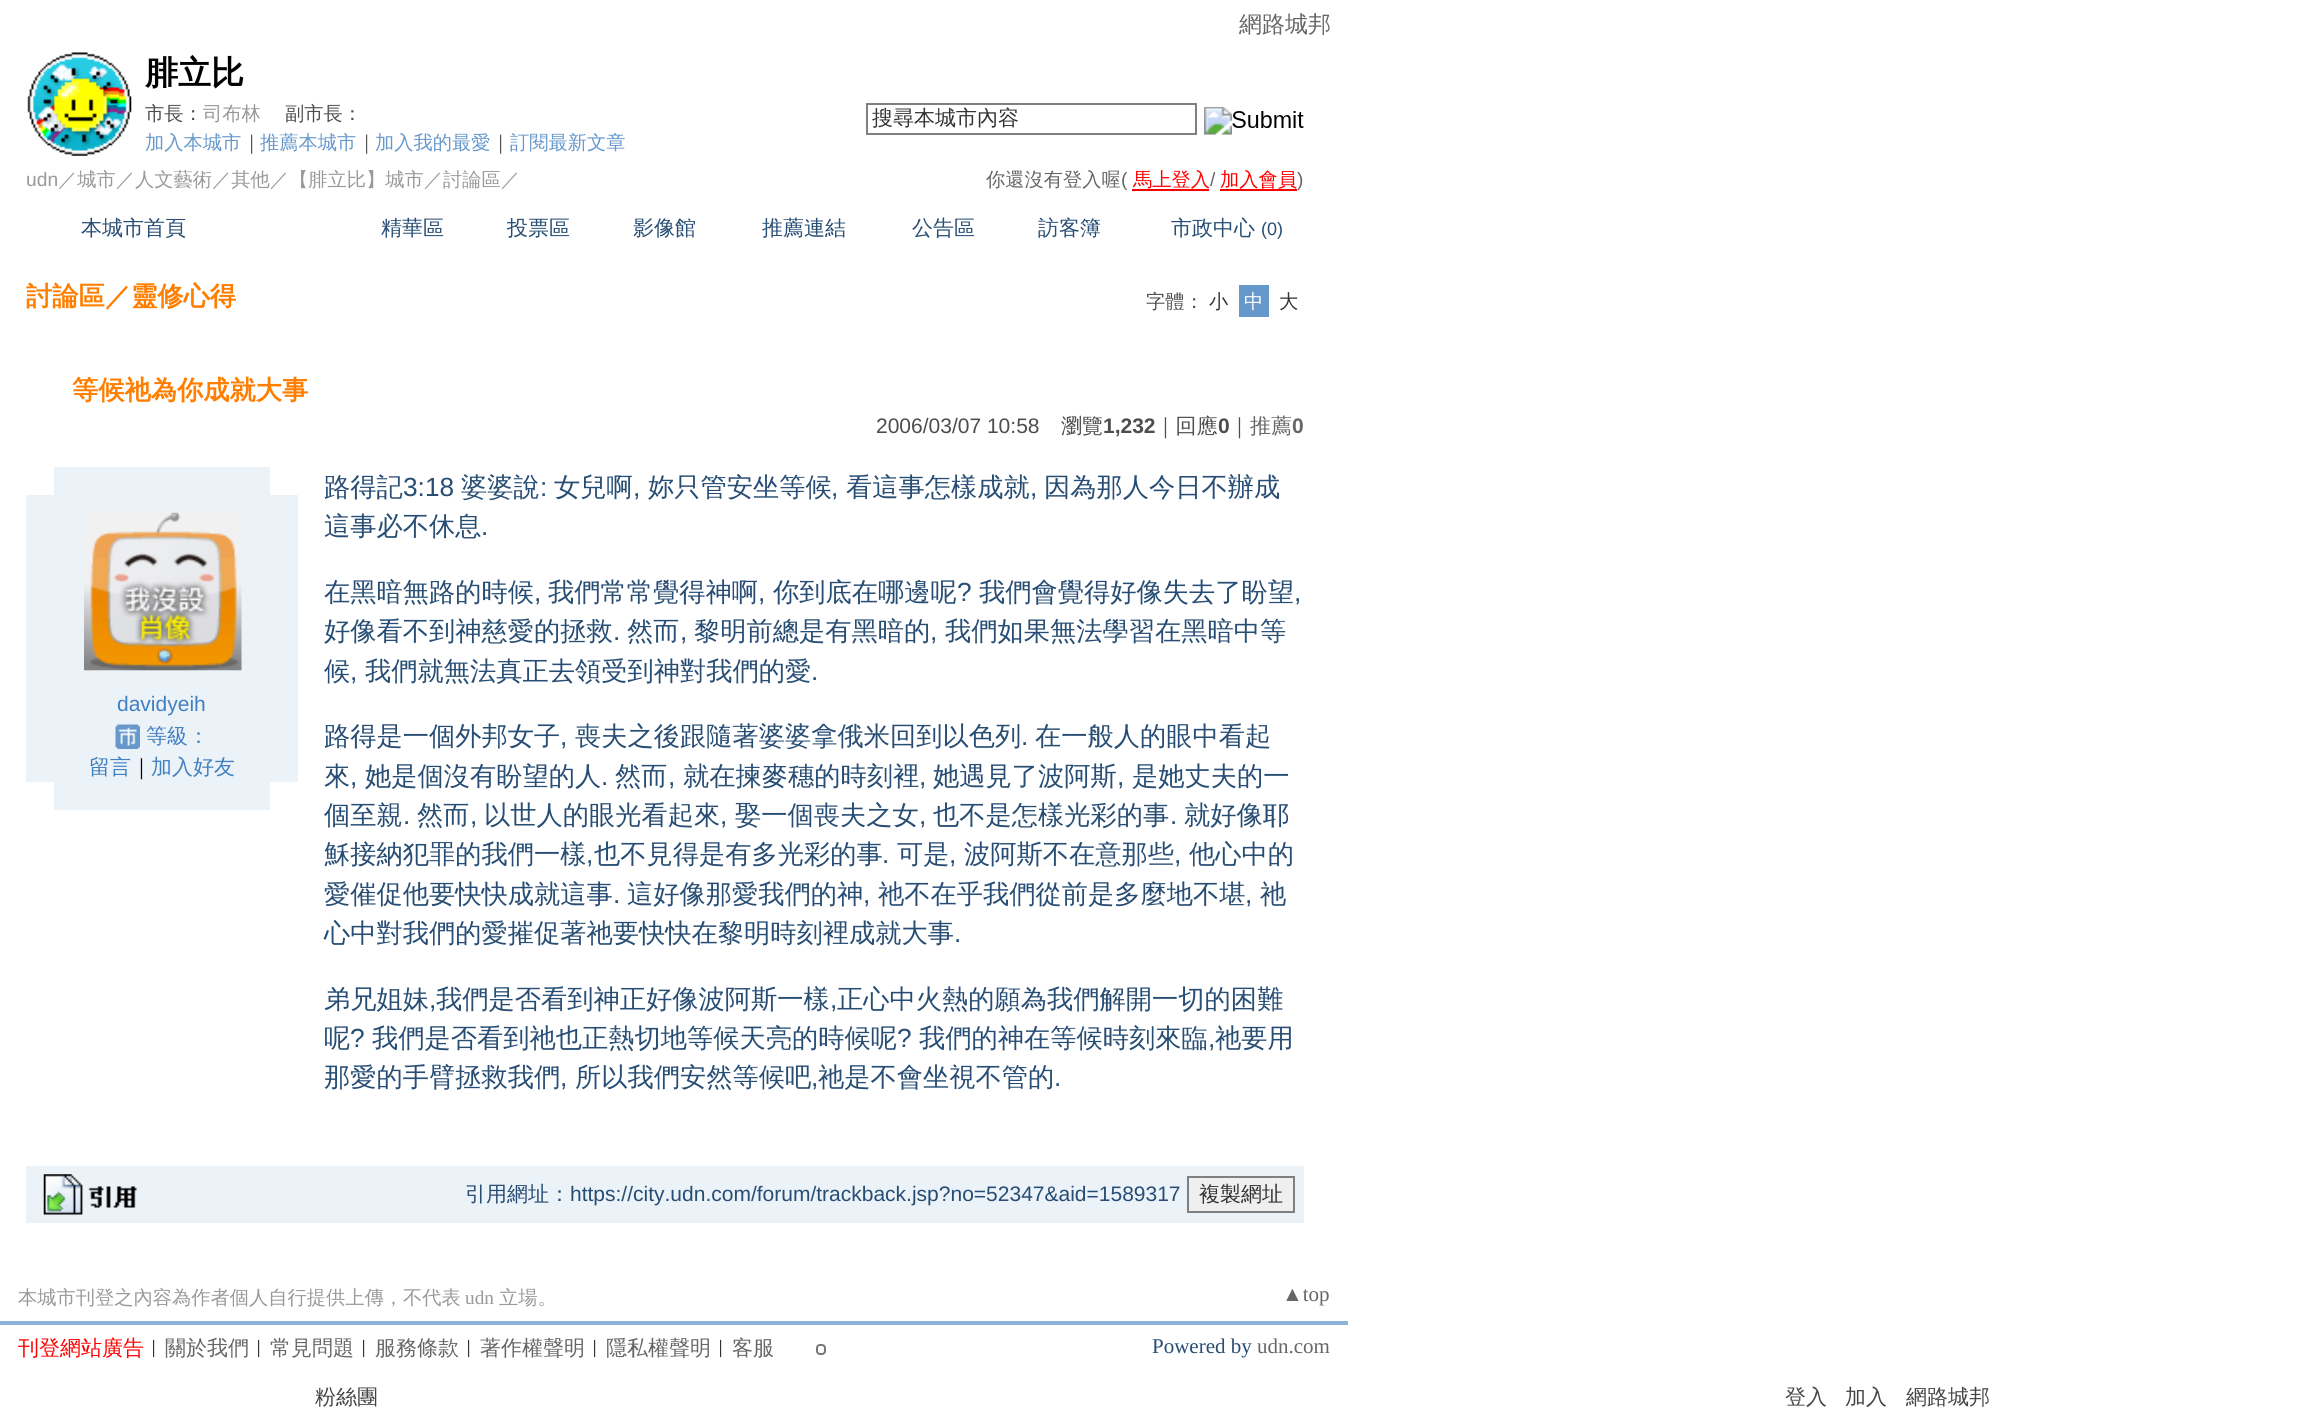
#include <cairo/cairo.h>
#include <math.h>
#include <stddef.h>

typedef struct { double x, y; const char *s; } line_t;
typedef struct { double x, y, w, h; unsigned color; } box_t;
static cairo_t *cr;

static void rgb(unsigned color)
{
	cairo_set_source_rgb(cr, (color >> 16) / 255.0, (color >> 8 & 255) / 255.0, (color & 255) / 255.0);
}

static void rrect(double x, double y, double w, double h, double r)
{
	cairo_new_sub_path(cr);
	cairo_arc(cr, x + w - r, y + h - r, r, 0, M_PI / 2);
	cairo_arc(cr, x + r, y + h - r, r, M_PI / 2, M_PI);
	cairo_arc(cr, x + r, y + r, r, M_PI, 1.5 * M_PI);
	cairo_arc(cr, x + w - r, y + r, r, 1.5 * M_PI, 2 * M_PI);
	cairo_close_path(cr);
}

static void image(const char *path, double x, double y, double w, double h)
{
	cairo_surface_t *image = cairo_image_surface_create_from_png(path);
	cairo_save(cr);
	cairo_set_source_surface(cr, image, x, y);
	cairo_rectangle(cr, x, y, w, h);
	cairo_fill(cr);
	cairo_restore(cr);
	cairo_surface_destroy(image);
}

int main(void) {
	cairo_surface_t *surface = cairo_image_surface_create(CAIRO_FORMAT_RGB24, 2305, 1422);
	cr = cairo_create(surface);
	cairo_font_options_t *options = cairo_font_options_create();
	cairo_font_options_set_hint_metrics(options, CAIRO_HINT_METRICS_OFF);
	cairo_font_options_set_hint_style(options, CAIRO_HINT_STYLE_NONE);
	cairo_set_font_options(cr, options);
	cairo_set_miter_limit(cr, 4);
	rgb(0xffffff);
	cairo_paint(cr);
	image("img/1.png", 27, 52, 105, 104);
	cairo_rectangle(cr, 867, 104, 329, 30);
	rgb(0x808080);
	cairo_stroke(cr);
	image("img/2.png", 1204, 106, 100, 29);
	{
		static const box_t items[] = {
			{1132, 189, 77, 2, 0xff0000},
			{1220, 189, 77, 2, 0xff0000},
			{1239, 285, 30, 32, 0x6698cc},
			{54, 467, 216, 28, 0xebf2f8},
			{26, 495, 272, 287, 0xebf2f8},
		};
		for (size_t i = 0; i < sizeof items / sizeof *items; i++) {
			rgb(items[i].color);
			cairo_rectangle(cr, items[i].x, items[i].y, items[i].w, items[i].h);
			cairo_fill(cr);
		}
	}
	image("img/3.png", 84, 512, 158, 159);
	image("img/4.png", 115, 724, 25, 25);
	cairo_rectangle(cr, 54, 782, 216, 28);
	cairo_fill(cr);
	cairo_rectangle(cr, 26, 1166, 1278, 57);
	cairo_fill(cr);
	image("img/5.png", 43, 1174, 94, 41);
	rgb(0xefefef);
	cairo_rectangle(cr, 1188, 1177, 106, 35);
	cairo_fill_preserve(cr);
	rgb(0x808080);
	cairo_stroke(cr);
	rgb(0x8db3d9);
	cairo_rectangle(cr, 0, 1321, 1348, 4);
	cairo_fill(cr);
	rrect(817, 1345, 8, 9, 3);
	rgb(0x767676);
	cairo_stroke(cr);
	cairo_select_font_face(cr, "WenQuanYi Zen Hei Medium", CAIRO_FONT_SLANT_NORMAL, CAIRO_FONT_WEIGHT_NORMAL);
	cairo_set_font_size(cr, 23);
	rgb(0x666666);
	cairo_move_to(cr, 1239, 32);
	cairo_show_text(cr, "網路城邦");
	cairo_select_font_face(cr, "WenQuanYi Zen Hei", CAIRO_FONT_SLANT_NORMAL, CAIRO_FONT_WEIGHT_BOLD);
	cairo_set_font_size(cr, 33);
	rgb(0x000000);
	cairo_move_to(cr, 145, 84);
	cairo_show_text(cr, "腓立比");
	cairo_select_font_face(cr, "WenQuanYi Zen Hei Medium", CAIRO_FONT_SLANT_NORMAL, CAIRO_FONT_WEIGHT_NORMAL);
	cairo_set_font_size(cr, 19.25);
	rgb(0x4d4d4d);
	cairo_move_to(cr, 145, 120);
	cairo_show_text(cr, "市長：");
	rgb(0x999999);
	cairo_move_to(cr, 203, 120);
	cairo_show_text(cr, "司布林");
	rgb(0x4d4d4d);
	cairo_move_to(cr, 285, 120);
	cairo_show_text(cr, "副市長：");
	rgb(0x6698cc);
	cairo_move_to(cr, 145, 149);
	cairo_show_text(cr, "加入本城市");
	rgb(0x4d4d4d);
	cairo_move_to(cr, 242, 149);
	cairo_show_text(cr, "｜");
	rgb(0x6698cc);
	cairo_move_to(cr, 260, 149);
	cairo_show_text(cr, "推薦本城市");
	rgb(0x4d4d4d);
	cairo_move_to(cr, 357, 149);
	cairo_show_text(cr, "｜");
	rgb(0x6698cc);
	cairo_move_to(cr, 375, 149);
	cairo_show_text(cr, "加入我的最愛");
	rgb(0x4d4d4d);
	cairo_move_to(cr, 491, 149);
	cairo_show_text(cr, "｜");
	rgb(0x6698cc);
	cairo_move_to(cr, 510, 149);
	cairo_show_text(cr, "訂閱最新文章");
	cairo_set_font_size(cr, 21);
	rgb(0x333333);
	cairo_move_to(cr, 872, 125);
	cairo_show_text(cr, "搜尋本城市內容");
	cairo_select_font_face(cr, "Liberation Sans", CAIRO_FONT_SLANT_NORMAL, CAIRO_FONT_WEIGHT_NORMAL);
	cairo_set_font_size(cr, 19.25);
	rgb(0x999999);
	cairo_move_to(cr, 26, 186);
	cairo_show_text(cr, "udn");
	cairo_select_font_face(cr, "WenQuanYi Zen Hei Medium", CAIRO_FONT_SLANT_NORMAL, CAIRO_FONT_WEIGHT_NORMAL);
	cairo_move_to(cr, 58, 186);
	cairo_show_text(cr, "／城市／人文藝術／其他／【腓立比】城市／討論區／");
	rgb(0x666666);
	cairo_move_to(cr, 986, 186);
	cairo_show_text(cr, "你還沒有登入喔");
	cairo_select_font_face(cr, "Liberation Sans", CAIRO_FONT_SLANT_NORMAL, CAIRO_FONT_WEIGHT_NORMAL);
	cairo_move_to(cr, 1121, 186);
	cairo_show_text(cr, "(");
	cairo_select_font_face(cr, "WenQuanYi Zen Hei Medium", CAIRO_FONT_SLANT_NORMAL, CAIRO_FONT_WEIGHT_NORMAL);
	rgb(0xff0000);
	cairo_move_to(cr, 1133, 186);
	cairo_show_text(cr, "馬上登入");
	cairo_select_font_face(cr, "Liberation Sans", CAIRO_FONT_SLANT_NORMAL, CAIRO_FONT_WEIGHT_NORMAL);
	rgb(0x666666);
	cairo_move_to(cr, 1210, 186);
	cairo_show_text(cr, "/");
	cairo_select_font_face(cr, "WenQuanYi Zen Hei Medium", CAIRO_FONT_SLANT_NORMAL, CAIRO_FONT_WEIGHT_NORMAL);
	rgb(0xff0000);
	cairo_move_to(cr, 1220, 186);
	cairo_show_text(cr, "加入會員");
	cairo_select_font_face(cr, "Liberation Sans", CAIRO_FONT_SLANT_NORMAL, CAIRO_FONT_WEIGHT_NORMAL);
	rgb(0x666666);
	cairo_move_to(cr, 1297, 186);
	cairo_show_text(cr, ")");
	cairo_select_font_face(cr, "WenQuanYi Zen Hei Medium", CAIRO_FONT_SLANT_NORMAL, CAIRO_FONT_WEIGHT_NORMAL);
	cairo_set_font_size(cr, 21);
	rgb(0x274d74);
	{
		static const line_t items[] = {
			{81, 235, "本城市首頁"},
			{381, 235, "精華區"},
			{507, 235, "投票區"},
			{633, 235, "影像館"},
			{762, 235, "推薦連結"},
			{912, 235, "公告區"},
			{1038, 235, "訪客簿"},
			{1171, 235, "市政中心"},
		};
		for (size_t i = 0; i < sizeof items / sizeof *items; i++) {
			cairo_move_to(cr, items[i].x, items[i].y);
			cairo_show_text(cr, items[i].s);
		}
	}
	cairo_select_font_face(cr, "Liberation Sans", CAIRO_FONT_SLANT_NORMAL, CAIRO_FONT_WEIGHT_NORMAL);
	cairo_set_font_size(cr, 18);
	cairo_move_to(cr, 1261, 235);
	cairo_show_text(cr, "(0)");
	cairo_select_font_face(cr, "WenQuanYi Zen Hei", CAIRO_FONT_SLANT_NORMAL, CAIRO_FONT_WEIGHT_BOLD);
	cairo_set_font_size(cr, 26.25);
	rgb(0xff7e00);
	cairo_move_to(cr, 26, 305);
	cairo_show_text(cr, "討論區／靈修心得");
	cairo_select_font_face(cr, "WenQuanYi Zen Hei Medium", CAIRO_FONT_SLANT_NORMAL, CAIRO_FONT_WEIGHT_NORMAL);
	cairo_set_font_size(cr, 19.25);
	rgb(0x4d4d4d);
	cairo_move_to(cr, 1146, 308);
	cairo_show_text(cr, "字體：");
	rgb(0x333333);
	cairo_move_to(cr, 1209, 308);
	cairo_show_text(cr, "小");
	rgb(0xffffff);
	cairo_move_to(cr, 1244, 308);
	cairo_show_text(cr, "中");
	rgb(0x333333);
	cairo_move_to(cr, 1279, 308);
	cairo_show_text(cr, "大");
	cairo_select_font_face(cr, "WenQuanYi Zen Hei", CAIRO_FONT_SLANT_NORMAL, CAIRO_FONT_WEIGHT_BOLD);
	cairo_set_font_size(cr, 26.25);
	rgb(0xff7e00);
	cairo_move_to(cr, 72, 399);
	cairo_show_text(cr, "等候祂為你成就大事");
	cairo_select_font_face(cr, "Liberation Sans", CAIRO_FONT_SLANT_NORMAL, CAIRO_FONT_WEIGHT_NORMAL);
	cairo_set_font_size(cr, 21);
	rgb(0x4d4d4d);
	cairo_move_to(cr, 876, 433);
	cairo_show_text(cr, "2006/03/07 10:58");
	cairo_select_font_face(cr, "WenQuanYi Zen Hei Medium", CAIRO_FONT_SLANT_NORMAL, CAIRO_FONT_WEIGHT_NORMAL);
	cairo_move_to(cr, 1061, 433);
	cairo_show_text(cr, "瀏覽");
	cairo_select_font_face(cr, "Liberation Sans", CAIRO_FONT_SLANT_NORMAL, CAIRO_FONT_WEIGHT_BOLD);
	cairo_move_to(cr, 1103, 433);
	cairo_show_text(cr, "1,232");
	cairo_select_font_face(cr, "WenQuanYi Zen Hei Medium", CAIRO_FONT_SLANT_NORMAL, CAIRO_FONT_WEIGHT_NORMAL);
	cairo_move_to(cr, 1155, 433);
	cairo_show_text(cr, "｜回應");
	cairo_select_font_face(cr, "Liberation Sans", CAIRO_FONT_SLANT_NORMAL, CAIRO_FONT_WEIGHT_BOLD);
	cairo_move_to(cr, 1218, 433);
	cairo_show_text(cr, "0");
	cairo_select_font_face(cr, "WenQuanYi Zen Hei Medium", CAIRO_FONT_SLANT_NORMAL, CAIRO_FONT_WEIGHT_NORMAL);
	cairo_move_to(cr, 1229, 433);
	cairo_show_text(cr, "｜");
	rgb(0x666666);
	cairo_move_to(cr, 1250, 433);
	cairo_show_text(cr, "推薦");
	cairo_select_font_face(cr, "Liberation Sans", CAIRO_FONT_SLANT_NORMAL, CAIRO_FONT_WEIGHT_BOLD);
	cairo_move_to(cr, 1292, 433);
	cairo_show_text(cr, "0");
	cairo_select_font_face(cr, "Liberation Sans", CAIRO_FONT_SLANT_NORMAL, CAIRO_FONT_WEIGHT_NORMAL);
	rgb(0x4180c0);
	cairo_move_to(cr, 117, 711);
	cairo_show_text(cr, "davidyeih");
	cairo_select_font_face(cr, "WenQuanYi Zen Hei Medium", CAIRO_FONT_SLANT_NORMAL, CAIRO_FONT_WEIGHT_NORMAL);
	cairo_move_to(cr, 146, 743);
	cairo_show_text(cr, "等級：");
	cairo_move_to(cr, 89, 774);
	cairo_show_text(cr, "留言");
	rgb(0x000000);
	cairo_move_to(cr, 131, 774);
	cairo_show_text(cr, "｜");
	rgb(0x4180c0);
	cairo_move_to(cr, 151, 774);
	cairo_show_text(cr, "加入好友");
	cairo_set_font_size(cr, 26.25);
	rgb(0x274d74);
	cairo_move_to(cr, 324, 496);
	cairo_show_text(cr, "路得記");
	cairo_select_font_face(cr, "Liberation Sans", CAIRO_FONT_SLANT_NORMAL, CAIRO_FONT_WEIGHT_NORMAL);
	cairo_move_to(cr, 403, 496);
	cairo_show_text(cr, "3:18");
	cairo_select_font_face(cr, "WenQuanYi Zen Hei Medium", CAIRO_FONT_SLANT_NORMAL, CAIRO_FONT_WEIGHT_NORMAL);
	cairo_move_to(cr, 461, 496);
	cairo_show_text(cr, "婆婆說");
	cairo_select_font_face(cr, "Liberation Sans", CAIRO_FONT_SLANT_NORMAL, CAIRO_FONT_WEIGHT_NORMAL);
	cairo_move_to(cr, 540, 496);
	cairo_show_text(cr, ":");
	cairo_select_font_face(cr, "WenQuanYi Zen Hei Medium", CAIRO_FONT_SLANT_NORMAL, CAIRO_FONT_WEIGHT_NORMAL);
	cairo_move_to(cr, 554, 496);
	cairo_show_text(cr, "女兒啊");
	cairo_select_font_face(cr, "Liberation Sans", CAIRO_FONT_SLANT_NORMAL, CAIRO_FONT_WEIGHT_NORMAL);
	cairo_move_to(cr, 633, 496);
	cairo_show_text(cr, ",");
	cairo_select_font_face(cr, "WenQuanYi Zen Hei Medium", CAIRO_FONT_SLANT_NORMAL, CAIRO_FONT_WEIGHT_NORMAL);
	cairo_move_to(cr, 648, 496);
	cairo_show_text(cr, "妳只管安坐等候");
	cairo_select_font_face(cr, "Liberation Sans", CAIRO_FONT_SLANT_NORMAL, CAIRO_FONT_WEIGHT_NORMAL);
	cairo_move_to(cr, 831, 496);
	cairo_show_text(cr, ",");
	cairo_select_font_face(cr, "WenQuanYi Zen Hei Medium", CAIRO_FONT_SLANT_NORMAL, CAIRO_FONT_WEIGHT_NORMAL);
	cairo_move_to(cr, 846, 496);
	cairo_show_text(cr, "看這事怎樣成就");
	cairo_select_font_face(cr, "Liberation Sans", CAIRO_FONT_SLANT_NORMAL, CAIRO_FONT_WEIGHT_NORMAL);
	cairo_move_to(cr, 1030, 496);
	cairo_show_text(cr, ",");
	cairo_select_font_face(cr, "WenQuanYi Zen Hei Medium", CAIRO_FONT_SLANT_NORMAL, CAIRO_FONT_WEIGHT_NORMAL);
	cairo_move_to(cr, 1044, 496);
	cairo_show_text(cr, "因為那人今日不辦成");
	cairo_move_to(cr, 324, 535);
	cairo_show_text(cr, "這事必不休息");
	cairo_select_font_face(cr, "Liberation Sans", CAIRO_FONT_SLANT_NORMAL, CAIRO_FONT_WEIGHT_NORMAL);
	cairo_move_to(cr, 481, 535);
	cairo_show_text(cr, ".");
	cairo_select_font_face(cr, "WenQuanYi Zen Hei Medium", CAIRO_FONT_SLANT_NORMAL, CAIRO_FONT_WEIGHT_NORMAL);
	cairo_move_to(cr, 324, 601);
	cairo_show_text(cr, "在黑暗無路的時候");
	cairo_select_font_face(cr, "Liberation Sans", CAIRO_FONT_SLANT_NORMAL, CAIRO_FONT_WEIGHT_NORMAL);
	cairo_move_to(cr, 534, 601);
	cairo_show_text(cr, ",");
	cairo_select_font_face(cr, "WenQuanYi Zen Hei Medium", CAIRO_FONT_SLANT_NORMAL, CAIRO_FONT_WEIGHT_NORMAL);
	cairo_move_to(cr, 548, 601);
	cairo_show_text(cr, "我們常常覺得神啊");
	cairo_select_font_face(cr, "Liberation Sans", CAIRO_FONT_SLANT_NORMAL, CAIRO_FONT_WEIGHT_NORMAL);
	cairo_move_to(cr, 758, 601);
	cairo_show_text(cr, ",");
	cairo_select_font_face(cr, "WenQuanYi Zen Hei Medium", CAIRO_FONT_SLANT_NORMAL, CAIRO_FONT_WEIGHT_NORMAL);
	cairo_move_to(cr, 773, 601);
	cairo_show_text(cr, "你到底在哪邊呢");
	cairo_select_font_face(cr, "Liberation Sans", CAIRO_FONT_SLANT_NORMAL, CAIRO_FONT_WEIGHT_NORMAL);
	cairo_move_to(cr, 957, 601);
	cairo_show_text(cr, "?");
	cairo_select_font_face(cr, "WenQuanYi Zen Hei Medium", CAIRO_FONT_SLANT_NORMAL, CAIRO_FONT_WEIGHT_NORMAL);
	cairo_move_to(cr, 979, 601);
	cairo_show_text(cr, "我們會覺得好像失去了盼望");
	cairo_select_font_face(cr, "Liberation Sans", CAIRO_FONT_SLANT_NORMAL, CAIRO_FONT_WEIGHT_NORMAL);
	cairo_move_to(cr, 1294, 601);
	cairo_show_text(cr, ",");
	cairo_select_font_face(cr, "WenQuanYi Zen Hei Medium", CAIRO_FONT_SLANT_NORMAL, CAIRO_FONT_WEIGHT_NORMAL);
	cairo_move_to(cr, 324, 640);
	cairo_show_text(cr, "好像看不到神慈愛的拯救");
	cairo_select_font_face(cr, "Liberation Sans", CAIRO_FONT_SLANT_NORMAL, CAIRO_FONT_WEIGHT_NORMAL);
	cairo_move_to(cr, 613, 640);
	cairo_show_text(cr, ".");
	cairo_select_font_face(cr, "WenQuanYi Zen Hei Medium", CAIRO_FONT_SLANT_NORMAL, CAIRO_FONT_WEIGHT_NORMAL);
	cairo_move_to(cr, 627, 640);
	cairo_show_text(cr, "然而");
	cairo_select_font_face(cr, "Liberation Sans", CAIRO_FONT_SLANT_NORMAL, CAIRO_FONT_WEIGHT_NORMAL);
	cairo_move_to(cr, 680, 640);
	cairo_show_text(cr, ",");
	cairo_select_font_face(cr, "WenQuanYi Zen Hei Medium", CAIRO_FONT_SLANT_NORMAL, CAIRO_FONT_WEIGHT_NORMAL);
	cairo_move_to(cr, 694, 640);
	cairo_show_text(cr, "黎明前總是有黑暗的");
	cairo_select_font_face(cr, "Liberation Sans", CAIRO_FONT_SLANT_NORMAL, CAIRO_FONT_WEIGHT_NORMAL);
	cairo_move_to(cr, 930, 640);
	cairo_show_text(cr, ",");
	cairo_select_font_face(cr, "WenQuanYi Zen Hei Medium", CAIRO_FONT_SLANT_NORMAL, CAIRO_FONT_WEIGHT_NORMAL);
	cairo_move_to(cr, 945, 640);
	cairo_show_text(cr, "我們如果無法學習在黑暗中等");
	cairo_move_to(cr, 324, 680);
	cairo_show_text(cr, "候");
	cairo_select_font_face(cr, "Liberation Sans", CAIRO_FONT_SLANT_NORMAL, CAIRO_FONT_WEIGHT_NORMAL);
	cairo_move_to(cr, 350, 680);
	cairo_show_text(cr, ",");
	cairo_select_font_face(cr, "WenQuanYi Zen Hei Medium", CAIRO_FONT_SLANT_NORMAL, CAIRO_FONT_WEIGHT_NORMAL);
	cairo_move_to(cr, 365, 680);
	cairo_show_text(cr, "我們就無法真正去領受到神對我們的愛");
	cairo_select_font_face(cr, "Liberation Sans", CAIRO_FONT_SLANT_NORMAL, CAIRO_FONT_WEIGHT_NORMAL);
	cairo_move_to(cr, 811, 680);
	cairo_show_text(cr, ".");
	cairo_select_font_face(cr, "WenQuanYi Zen Hei Medium", CAIRO_FONT_SLANT_NORMAL, CAIRO_FONT_WEIGHT_NORMAL);
	cairo_move_to(cr, 324, 745);
	cairo_show_text(cr, "路得是一個外邦女子");
	cairo_select_font_face(cr, "Liberation Sans", CAIRO_FONT_SLANT_NORMAL, CAIRO_FONT_WEIGHT_NORMAL);
	cairo_move_to(cr, 560, 745);
	cairo_show_text(cr, ",");
	cairo_select_font_face(cr, "WenQuanYi Zen Hei Medium", CAIRO_FONT_SLANT_NORMAL, CAIRO_FONT_WEIGHT_NORMAL);
	cairo_move_to(cr, 575, 745);
	cairo_show_text(cr, "喪夫之後跟隨著婆婆拿俄米回到以色列");
	cairo_select_font_face(cr, "Liberation Sans", CAIRO_FONT_SLANT_NORMAL, CAIRO_FONT_WEIGHT_NORMAL);
	cairo_move_to(cr, 1021, 745);
	cairo_show_text(cr, ".");
	cairo_select_font_face(cr, "WenQuanYi Zen Hei Medium", CAIRO_FONT_SLANT_NORMAL, CAIRO_FONT_WEIGHT_NORMAL);
	cairo_move_to(cr, 1035, 745);
	cairo_show_text(cr, "在一般人的眼中看起");
	cairo_move_to(cr, 324, 785);
	cairo_show_text(cr, "來");
	cairo_select_font_face(cr, "Liberation Sans", CAIRO_FONT_SLANT_NORMAL, CAIRO_FONT_WEIGHT_NORMAL);
	cairo_move_to(cr, 350, 785);
	cairo_show_text(cr, ",");
	cairo_select_font_face(cr, "WenQuanYi Zen Hei Medium", CAIRO_FONT_SLANT_NORMAL, CAIRO_FONT_WEIGHT_NORMAL);
	cairo_move_to(cr, 365, 785);
	cairo_show_text(cr, "她是個沒有盼望的人");
	cairo_select_font_face(cr, "Liberation Sans", CAIRO_FONT_SLANT_NORMAL, CAIRO_FONT_WEIGHT_NORMAL);
	cairo_move_to(cr, 601, 785);
	cairo_show_text(cr, ".");
	cairo_select_font_face(cr, "WenQuanYi Zen Hei Medium", CAIRO_FONT_SLANT_NORMAL, CAIRO_FONT_WEIGHT_NORMAL);
	cairo_move_to(cr, 615, 785);
	cairo_show_text(cr, "然而");
	cairo_select_font_face(cr, "Liberation Sans", CAIRO_FONT_SLANT_NORMAL, CAIRO_FONT_WEIGHT_NORMAL);
	cairo_move_to(cr, 668, 785);
	cairo_show_text(cr, ",");
	cairo_select_font_face(cr, "WenQuanYi Zen Hei Medium", CAIRO_FONT_SLANT_NORMAL, CAIRO_FONT_WEIGHT_NORMAL);
	cairo_move_to(cr, 683, 785);
	cairo_show_text(cr, "就在揀麥穗的時刻裡");
	cairo_select_font_face(cr, "Liberation Sans", CAIRO_FONT_SLANT_NORMAL, CAIRO_FONT_WEIGHT_NORMAL);
	cairo_move_to(cr, 919, 785);
	cairo_show_text(cr, ",");
	cairo_select_font_face(cr, "WenQuanYi Zen Hei Medium", CAIRO_FONT_SLANT_NORMAL, CAIRO_FONT_WEIGHT_NORMAL);
	cairo_move_to(cr, 933, 785);
	cairo_show_text(cr, "她遇見了波阿斯");
	cairo_select_font_face(cr, "Liberation Sans", CAIRO_FONT_SLANT_NORMAL, CAIRO_FONT_WEIGHT_NORMAL);
	cairo_move_to(cr, 1117, 785);
	cairo_show_text(cr, ",");
	cairo_select_font_face(cr, "WenQuanYi Zen Hei Medium", CAIRO_FONT_SLANT_NORMAL, CAIRO_FONT_WEIGHT_NORMAL);
	cairo_move_to(cr, 1132, 785);
	cairo_show_text(cr, "是她丈夫的一");
	cairo_move_to(cr, 324, 824);
	cairo_show_text(cr, "個至親");
	cairo_select_font_face(cr, "Liberation Sans", CAIRO_FONT_SLANT_NORMAL, CAIRO_FONT_WEIGHT_NORMAL);
	cairo_move_to(cr, 403, 824);
	cairo_show_text(cr, ".");
	cairo_select_font_face(cr, "WenQuanYi Zen Hei Medium", CAIRO_FONT_SLANT_NORMAL, CAIRO_FONT_WEIGHT_NORMAL);
	cairo_move_to(cr, 417, 824);
	cairo_show_text(cr, "然而");
	cairo_select_font_face(cr, "Liberation Sans", CAIRO_FONT_SLANT_NORMAL, CAIRO_FONT_WEIGHT_NORMAL);
	cairo_move_to(cr, 470, 824);
	cairo_show_text(cr, ",");
	cairo_select_font_face(cr, "WenQuanYi Zen Hei Medium", CAIRO_FONT_SLANT_NORMAL, CAIRO_FONT_WEIGHT_NORMAL);
	cairo_move_to(cr, 484, 824);
	cairo_show_text(cr, "以世人的眼光看起來");
	cairo_select_font_face(cr, "Liberation Sans", CAIRO_FONT_SLANT_NORMAL, CAIRO_FONT_WEIGHT_NORMAL);
	cairo_move_to(cr, 720, 824);
	cairo_show_text(cr, ",");
	cairo_select_font_face(cr, "WenQuanYi Zen Hei Medium", CAIRO_FONT_SLANT_NORMAL, CAIRO_FONT_WEIGHT_NORMAL);
	cairo_move_to(cr, 735, 824);
	cairo_show_text(cr, "娶一個喪夫之女");
	cairo_select_font_face(cr, "Liberation Sans", CAIRO_FONT_SLANT_NORMAL, CAIRO_FONT_WEIGHT_NORMAL);
	cairo_move_to(cr, 919, 824);
	cairo_show_text(cr, ",");
	cairo_select_font_face(cr, "WenQuanYi Zen Hei Medium", CAIRO_FONT_SLANT_NORMAL, CAIRO_FONT_WEIGHT_NORMAL);
	cairo_move_to(cr, 933, 824);
	cairo_show_text(cr, "也不是怎樣光彩的事");
	cairo_select_font_face(cr, "Liberation Sans", CAIRO_FONT_SLANT_NORMAL, CAIRO_FONT_WEIGHT_NORMAL);
	cairo_move_to(cr, 1170, 824);
	cairo_show_text(cr, ".");
	cairo_select_font_face(cr, "WenQuanYi Zen Hei Medium", CAIRO_FONT_SLANT_NORMAL, CAIRO_FONT_WEIGHT_NORMAL);
	cairo_move_to(cr, 1184, 824);
	cairo_show_text(cr, "就好像耶");
	cairo_move_to(cr, 324, 863);
	cairo_show_text(cr, "穌接納犯罪的我們一樣");
	cairo_select_font_face(cr, "Liberation Sans", CAIRO_FONT_SLANT_NORMAL, CAIRO_FONT_WEIGHT_NORMAL);
	cairo_move_to(cr, 586, 863);
	cairo_show_text(cr, ",");
	cairo_select_font_face(cr, "WenQuanYi Zen Hei Medium", CAIRO_FONT_SLANT_NORMAL, CAIRO_FONT_WEIGHT_NORMAL);
	cairo_move_to(cr, 594, 863);
	cairo_show_text(cr, "也不見得是有多光彩的事");
	cairo_select_font_face(cr, "Liberation Sans", CAIRO_FONT_SLANT_NORMAL, CAIRO_FONT_WEIGHT_NORMAL);
	cairo_move_to(cr, 882, 863);
	cairo_show_text(cr, ".");
	cairo_select_font_face(cr, "WenQuanYi Zen Hei Medium", CAIRO_FONT_SLANT_NORMAL, CAIRO_FONT_WEIGHT_NORMAL);
	cairo_move_to(cr, 897, 863);
	cairo_show_text(cr, "可是");
	cairo_select_font_face(cr, "Liberation Sans", CAIRO_FONT_SLANT_NORMAL, CAIRO_FONT_WEIGHT_NORMAL);
	cairo_move_to(cr, 949, 863);
	cairo_show_text(cr, ",");
	cairo_select_font_face(cr, "WenQuanYi Zen Hei Medium", CAIRO_FONT_SLANT_NORMAL, CAIRO_FONT_WEIGHT_NORMAL);
	cairo_move_to(cr, 964, 863);
	cairo_show_text(cr, "波阿斯不在意那些");
	cairo_select_font_face(cr, "Liberation Sans", CAIRO_FONT_SLANT_NORMAL, CAIRO_FONT_WEIGHT_NORMAL);
	cairo_move_to(cr, 1174, 863);
	cairo_show_text(cr, ",");
	cairo_select_font_face(cr, "WenQuanYi Zen Hei Medium", CAIRO_FONT_SLANT_NORMAL, CAIRO_FONT_WEIGHT_NORMAL);
	cairo_move_to(cr, 1189, 863);
	cairo_show_text(cr, "他心中的");
	cairo_move_to(cr, 324, 903);
	cairo_show_text(cr, "愛催促他要快快成就這事");
	cairo_select_font_face(cr, "Liberation Sans", CAIRO_FONT_SLANT_NORMAL, CAIRO_FONT_WEIGHT_NORMAL);
	cairo_move_to(cr, 613, 903);
	cairo_show_text(cr, ".");
	cairo_select_font_face(cr, "WenQuanYi Zen Hei Medium", CAIRO_FONT_SLANT_NORMAL, CAIRO_FONT_WEIGHT_NORMAL);
	cairo_move_to(cr, 627, 903);
	cairo_show_text(cr, "這好像那愛我們的神");
	cairo_select_font_face(cr, "Liberation Sans", CAIRO_FONT_SLANT_NORMAL, CAIRO_FONT_WEIGHT_NORMAL);
	cairo_move_to(cr, 863, 903);
	cairo_show_text(cr, ",");
	cairo_select_font_face(cr, "WenQuanYi Zen Hei Medium", CAIRO_FONT_SLANT_NORMAL, CAIRO_FONT_WEIGHT_NORMAL);
	cairo_move_to(cr, 878, 903);
	cairo_show_text(cr, "祂不在乎我們從前是多麼地不堪");
	cairo_select_font_face(cr, "Liberation Sans", CAIRO_FONT_SLANT_NORMAL, CAIRO_FONT_WEIGHT_NORMAL);
	cairo_move_to(cr, 1245, 903);
	cairo_show_text(cr, ",");
	cairo_select_font_face(cr, "WenQuanYi Zen Hei Medium", CAIRO_FONT_SLANT_NORMAL, CAIRO_FONT_WEIGHT_NORMAL);
	cairo_move_to(cr, 1260, 903);
	cairo_show_text(cr, "祂");
	cairo_move_to(cr, 324, 942);
	cairo_show_text(cr, "心中對我們的愛摧促著祂要快快在黎明時刻裡成就大事");
	cairo_select_font_face(cr, "Liberation Sans", CAIRO_FONT_SLANT_NORMAL, CAIRO_FONT_WEIGHT_NORMAL);
	cairo_move_to(cr, 954, 942);
	cairo_show_text(cr, ".");
	cairo_select_font_face(cr, "WenQuanYi Zen Hei Medium", CAIRO_FONT_SLANT_NORMAL, CAIRO_FONT_WEIGHT_NORMAL);
	cairo_move_to(cr, 324, 1008);
	cairo_show_text(cr, "弟兄姐妹");
	cairo_select_font_face(cr, "Liberation Sans", CAIRO_FONT_SLANT_NORMAL, CAIRO_FONT_WEIGHT_NORMAL);
	cairo_move_to(cr, 429, 1008);
	cairo_show_text(cr, ",");
	cairo_select_font_face(cr, "WenQuanYi Zen Hei Medium", CAIRO_FONT_SLANT_NORMAL, CAIRO_FONT_WEIGHT_NORMAL);
	cairo_move_to(cr, 436, 1008);
	cairo_show_text(cr, "我們是否看到神正好像波阿斯一樣");
	cairo_select_font_face(cr, "Liberation Sans", CAIRO_FONT_SLANT_NORMAL, CAIRO_FONT_WEIGHT_NORMAL);
	cairo_move_to(cr, 830, 1008);
	cairo_show_text(cr, ",");
	cairo_select_font_face(cr, "WenQuanYi Zen Hei Medium", CAIRO_FONT_SLANT_NORMAL, CAIRO_FONT_WEIGHT_NORMAL);
	cairo_move_to(cr, 837, 1008);
	cairo_show_text(cr, "正心中火熱的願為我們解開一切的困難");
	cairo_move_to(cr, 324, 1047);
	cairo_show_text(cr, "呢");
	cairo_select_font_face(cr, "Liberation Sans", CAIRO_FONT_SLANT_NORMAL, CAIRO_FONT_WEIGHT_NORMAL);
	cairo_move_to(cr, 350, 1047);
	cairo_show_text(cr, "?");
	cairo_select_font_face(cr, "WenQuanYi Zen Hei Medium", CAIRO_FONT_SLANT_NORMAL, CAIRO_FONT_WEIGHT_NORMAL);
	cairo_move_to(cr, 372, 1047);
	cairo_show_text(cr, "我們是否看到祂也正熱切地等候天亮的時候呢");
	cairo_select_font_face(cr, "Liberation Sans", CAIRO_FONT_SLANT_NORMAL, CAIRO_FONT_WEIGHT_NORMAL);
	cairo_move_to(cr, 897, 1047);
	cairo_show_text(cr, "?");
	cairo_select_font_face(cr, "WenQuanYi Zen Hei Medium", CAIRO_FONT_SLANT_NORMAL, CAIRO_FONT_WEIGHT_NORMAL);
	cairo_move_to(cr, 919, 1047);
	cairo_show_text(cr, "我們的神在等候時刻來臨");
	cairo_select_font_face(cr, "Liberation Sans", CAIRO_FONT_SLANT_NORMAL, CAIRO_FONT_WEIGHT_NORMAL);
	cairo_move_to(cr, 1208, 1047);
	cairo_show_text(cr, ",");
	cairo_select_font_face(cr, "WenQuanYi Zen Hei Medium", CAIRO_FONT_SLANT_NORMAL, CAIRO_FONT_WEIGHT_NORMAL);
	cairo_move_to(cr, 1215, 1047);
	cairo_show_text(cr, "祂要用");
	cairo_move_to(cr, 324, 1086);
	cairo_show_text(cr, "那愛的手臂拯救我們");
	cairo_select_font_face(cr, "Liberation Sans", CAIRO_FONT_SLANT_NORMAL, CAIRO_FONT_WEIGHT_NORMAL);
	cairo_move_to(cr, 560, 1086);
	cairo_show_text(cr, ",");
	cairo_select_font_face(cr, "WenQuanYi Zen Hei Medium", CAIRO_FONT_SLANT_NORMAL, CAIRO_FONT_WEIGHT_NORMAL);
	cairo_move_to(cr, 575, 1086);
	cairo_show_text(cr, "所以我們安然等候吧");
	cairo_select_font_face(cr, "Liberation Sans", CAIRO_FONT_SLANT_NORMAL, CAIRO_FONT_WEIGHT_NORMAL);
	cairo_move_to(cr, 811, 1086);
	cairo_show_text(cr, ",");
	cairo_select_font_face(cr, "WenQuanYi Zen Hei Medium", CAIRO_FONT_SLANT_NORMAL, CAIRO_FONT_WEIGHT_NORMAL);
	cairo_move_to(cr, 818, 1086);
	cairo_show_text(cr, "祂是不會坐視不管的");
	cairo_select_font_face(cr, "Liberation Sans", CAIRO_FONT_SLANT_NORMAL, CAIRO_FONT_WEIGHT_NORMAL);
	cairo_move_to(cr, 1054, 1086);
	cairo_show_text(cr, ".");
	cairo_select_font_face(cr, "WenQuanYi Zen Hei Medium", CAIRO_FONT_SLANT_NORMAL, CAIRO_FONT_WEIGHT_NORMAL);
	cairo_set_font_size(cr, 21);
	cairo_move_to(cr, 465, 1201);
	cairo_show_text(cr, "引用網址：");
	cairo_select_font_face(cr, "Liberation Sans", CAIRO_FONT_SLANT_NORMAL, CAIRO_FONT_WEIGHT_NORMAL);
	cairo_move_to(cr, 570, 1201);
	cairo_show_text(cr, "https://city.udn.com/forum/trackback.jsp?no=52347&aid=1589317");
	cairo_select_font_face(cr, "WenQuanYi Zen Hei Medium", CAIRO_FONT_SLANT_NORMAL, CAIRO_FONT_WEIGHT_NORMAL);
	rgb(0x333333);
	cairo_move_to(cr, 1199, 1201);
	cairo_show_text(cr, "複製網址");
	cairo_set_font_size(cr, 19.25);
	rgb(0x999999);
	cairo_move_to(cr, 18, 1304);
	cairo_show_text(cr, "本城市刊登之內容為作者個人自行提供上傳，不代表");
	cairo_select_font_face(cr, "Liberation Serif", CAIRO_FONT_SLANT_NORMAL, CAIRO_FONT_WEIGHT_NORMAL);
	cairo_move_to(cr, 465, 1304);
	cairo_show_text(cr, "udn");
	cairo_select_font_face(cr, "WenQuanYi Zen Hei Medium", CAIRO_FONT_SLANT_NORMAL, CAIRO_FONT_WEIGHT_NORMAL);
	cairo_move_to(cr, 499, 1304);
	cairo_show_text(cr, "立場。");
	cairo_select_font_face(cr, "Liberation Serif", CAIRO_FONT_SLANT_NORMAL, CAIRO_FONT_WEIGHT_NORMAL);
	cairo_set_font_size(cr, 21);
	rgb(0x666666);
	cairo_move_to(cr, 1282, 1301);
	cairo_show_text(cr, "▲top");
	cairo_select_font_face(cr, "WenQuanYi Zen Hei Medium", CAIRO_FONT_SLANT_NORMAL, CAIRO_FONT_WEIGHT_NORMAL);
	rgb(0xff0000);
	cairo_move_to(cr, 18, 1355);
	cairo_show_text(cr, "刊登網站廣告");
	rgb(0x000000);
	cairo_move_to(cr, 144, 1355);
	cairo_show_text(cr, "︱");
	rgb(0x666666);
	cairo_move_to(cr, 165, 1355);
	cairo_show_text(cr, "關於我們");
	rgb(0x000000);
	cairo_move_to(cr, 249, 1355);
	cairo_show_text(cr, "︱");
	rgb(0x666666);
	cairo_move_to(cr, 270, 1355);
	cairo_show_text(cr, "常見問題");
	rgb(0x000000);
	cairo_move_to(cr, 354, 1355);
	cairo_show_text(cr, "︱");
	rgb(0x666666);
	cairo_move_to(cr, 375, 1355);
	cairo_show_text(cr, "服務條款");
	rgb(0x000000);
	cairo_move_to(cr, 459, 1355);
	cairo_show_text(cr, "︱");
	rgb(0x666666);
	cairo_move_to(cr, 480, 1355);
	cairo_show_text(cr, "著作權聲明");
	rgb(0x000000);
	cairo_move_to(cr, 585, 1355);
	cairo_show_text(cr, "︱");
	rgb(0x666666);
	cairo_move_to(cr, 606, 1355);
	cairo_show_text(cr, "隱私權聲明");
	rgb(0x000000);
	cairo_move_to(cr, 711, 1355);
	cairo_show_text(cr, "︱");
	rgb(0x666666);
	cairo_move_to(cr, 732, 1355);
	cairo_show_text(cr, "客服");
	cairo_select_font_face(cr, "Liberation Serif", CAIRO_FONT_SLANT_NORMAL, CAIRO_FONT_WEIGHT_NORMAL);
	rgb(0x274d74);
	cairo_move_to(cr, 1152, 1353);
	cairo_show_text(cr, "Powered by");
	rgb(0x666666);
	cairo_move_to(cr, 1257, 1353);
	cairo_show_text(cr, "udn.com");
	cairo_select_font_face(cr, "WenQuanYi Zen Hei Medium", CAIRO_FONT_SLANT_NORMAL, CAIRO_FONT_WEIGHT_NORMAL);
	rgb(0x444444);
	{
		static const line_t items[] = {
			{315, 1404, "粉絲團"},
			{1785, 1404, "登入"},
			{1845, 1404, "加入"},
			{1906, 1404, "網路城邦"},
		};
		for (size_t i = 0; i < sizeof items / sizeof *items; i++) {
			cairo_move_to(cr, items[i].x, items[i].y);
			cairo_show_text(cr, items[i].s);
		}
	}
	cairo_surface_write_to_png(surface, "page.png");
	cairo_font_options_destroy(options);
	cairo_destroy(cr);
	cairo_surface_destroy(surface);
	return 0;
}
